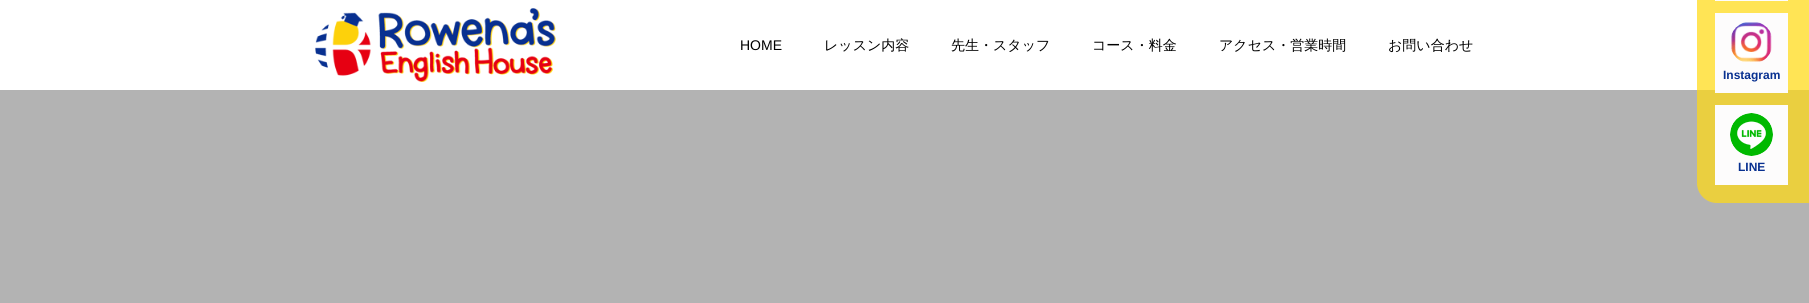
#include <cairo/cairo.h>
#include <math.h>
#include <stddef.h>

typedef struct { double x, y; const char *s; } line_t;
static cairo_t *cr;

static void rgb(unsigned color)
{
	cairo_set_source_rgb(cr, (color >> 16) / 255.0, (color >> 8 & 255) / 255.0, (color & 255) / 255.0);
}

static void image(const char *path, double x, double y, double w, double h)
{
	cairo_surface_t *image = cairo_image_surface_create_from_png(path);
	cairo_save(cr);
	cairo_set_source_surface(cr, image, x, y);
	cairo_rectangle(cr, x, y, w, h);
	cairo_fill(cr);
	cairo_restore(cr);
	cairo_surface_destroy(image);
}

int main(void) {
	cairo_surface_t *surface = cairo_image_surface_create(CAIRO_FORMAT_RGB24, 1809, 303);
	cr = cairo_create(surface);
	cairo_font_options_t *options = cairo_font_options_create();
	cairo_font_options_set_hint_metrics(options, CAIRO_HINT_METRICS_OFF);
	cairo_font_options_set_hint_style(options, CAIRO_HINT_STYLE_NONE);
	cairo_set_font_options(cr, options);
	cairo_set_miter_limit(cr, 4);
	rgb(0xb3b3b3);
	cairo_paint(cr);
	rgb(0xffffff);
	cairo_rectangle(cr, 0, 0, 1809, 90);
	cairo_fill(cr);
	image("img/1.png", 315, 8, 241, 74);
	cairo_set_source_rgba(cr, 0.996, 0.851, 0.09, 0.73);
	cairo_new_path(cr);
	cairo_move_to(cr, 1717, -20);
	cairo_line_to(cr, 1809, -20);
	cairo_line_to(cr, 1809, 203);
	cairo_line_to(cr, 1717, 203);
	cairo_curve_to(cr, 1706, 203, 1697, 194, 1697, 183);
	cairo_line_to(cr, 1697, 0);
	cairo_curve_to(cr, 1697, -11, 1706, -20, 1717, -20);
	cairo_close_path(cr);
	cairo_fill(cr);
	rgb(0xfdfcfc);
	cairo_rectangle(cr, 1715, 0, 73, 1);
	cairo_fill(cr);
	cairo_rectangle(cr, 1715, 13, 73, 80);
	cairo_fill(cr);
	image("img/2.png", 1731, 22, 41, 40);
	cairo_rectangle(cr, 1715, 105, 73, 80);
	cairo_fill(cr);
	image("img/3.png", 1730, 113, 43, 43);
	cairo_select_font_face(cr, "Liberation Sans", CAIRO_FONT_SLANT_NORMAL, CAIRO_FONT_WEIGHT_NORMAL);
	cairo_set_font_size(cr, 14);
	rgb(0x000000);
	cairo_move_to(cr, 740, 50);
	cairo_show_text(cr, "HOME");
	cairo_select_font_face(cr, "WenQuanYi Zen Hei Medium", CAIRO_FONT_SLANT_NORMAL, CAIRO_FONT_WEIGHT_NORMAL);
	{
		static const line_t items[] = {
			{824, 50, "レッスン内容"},
			{951, 50, "先生・スタッフ"},
			{1092, 50, "コース・料金"},
			{1219, 50, "アクセス・営業時間"},
			{1388, 50, "お問い合わせ"},
		};
		for (size_t i = 0; i < sizeof items / sizeof *items; i++) {
			cairo_move_to(cr, items[i].x, items[i].y);
			cairo_show_text(cr, items[i].s);
		}
	}
	cairo_select_font_face(cr, "Liberation Sans", CAIRO_FONT_SLANT_NORMAL, CAIRO_FONT_WEIGHT_BOLD);
	cairo_set_font_size(cr, 12);
	rgb(0x083090);
	cairo_move_to(cr, 1723, 79);
	cairo_show_text(cr, "Instagram");
	cairo_move_to(cr, 1738, 171);
	cairo_show_text(cr, "LINE");
	cairo_surface_write_to_png(surface, "page.png");
	cairo_font_options_destroy(options);
	cairo_destroy(cr);
	cairo_surface_destroy(surface);
	return 0;
}
